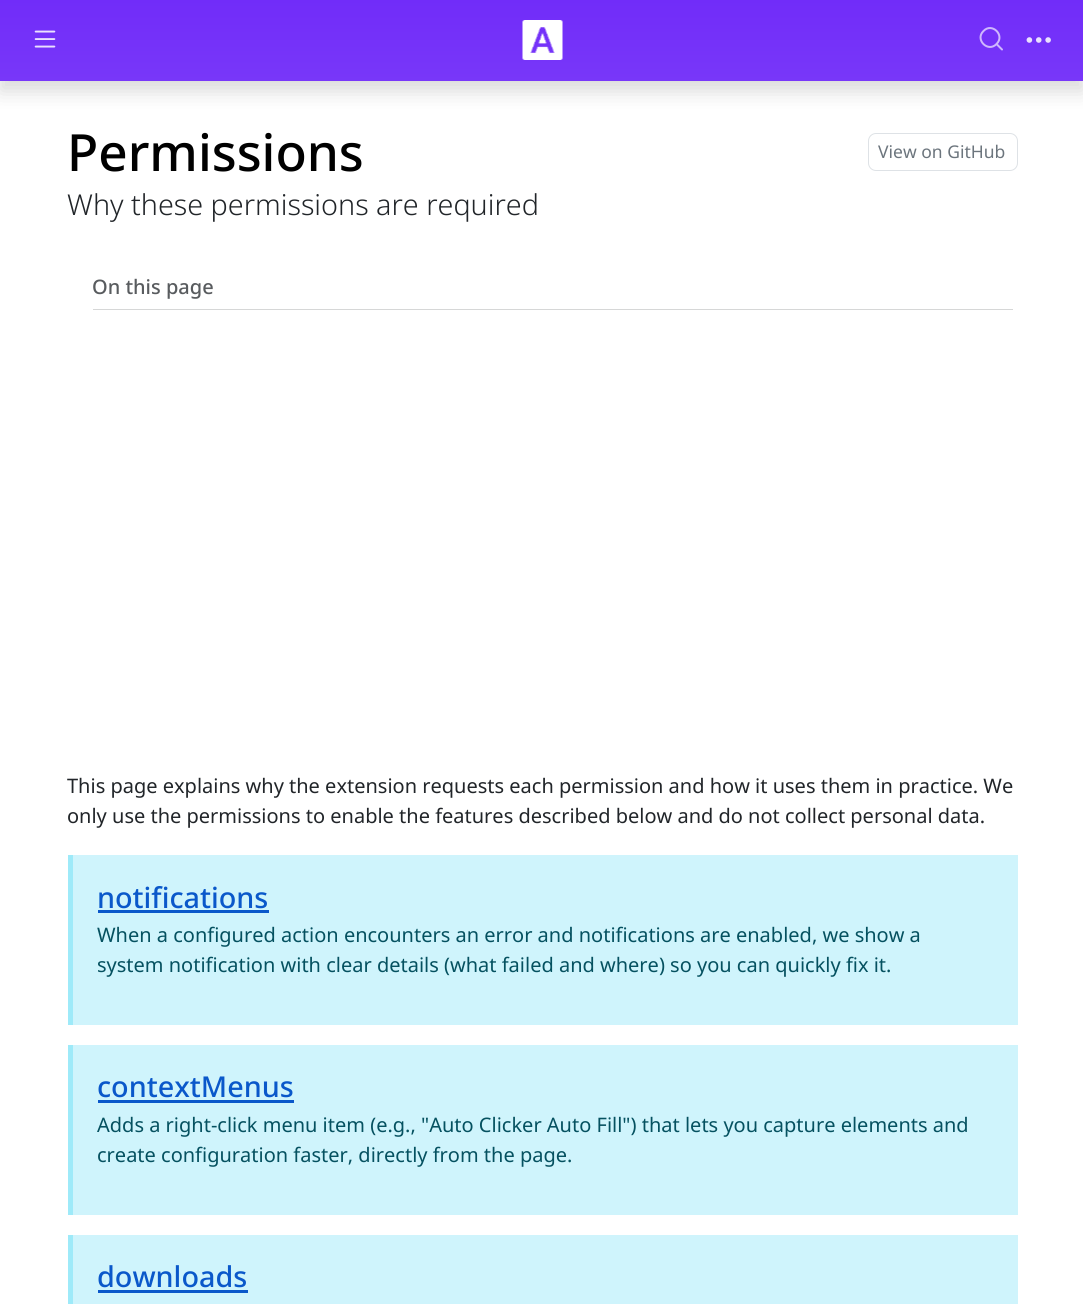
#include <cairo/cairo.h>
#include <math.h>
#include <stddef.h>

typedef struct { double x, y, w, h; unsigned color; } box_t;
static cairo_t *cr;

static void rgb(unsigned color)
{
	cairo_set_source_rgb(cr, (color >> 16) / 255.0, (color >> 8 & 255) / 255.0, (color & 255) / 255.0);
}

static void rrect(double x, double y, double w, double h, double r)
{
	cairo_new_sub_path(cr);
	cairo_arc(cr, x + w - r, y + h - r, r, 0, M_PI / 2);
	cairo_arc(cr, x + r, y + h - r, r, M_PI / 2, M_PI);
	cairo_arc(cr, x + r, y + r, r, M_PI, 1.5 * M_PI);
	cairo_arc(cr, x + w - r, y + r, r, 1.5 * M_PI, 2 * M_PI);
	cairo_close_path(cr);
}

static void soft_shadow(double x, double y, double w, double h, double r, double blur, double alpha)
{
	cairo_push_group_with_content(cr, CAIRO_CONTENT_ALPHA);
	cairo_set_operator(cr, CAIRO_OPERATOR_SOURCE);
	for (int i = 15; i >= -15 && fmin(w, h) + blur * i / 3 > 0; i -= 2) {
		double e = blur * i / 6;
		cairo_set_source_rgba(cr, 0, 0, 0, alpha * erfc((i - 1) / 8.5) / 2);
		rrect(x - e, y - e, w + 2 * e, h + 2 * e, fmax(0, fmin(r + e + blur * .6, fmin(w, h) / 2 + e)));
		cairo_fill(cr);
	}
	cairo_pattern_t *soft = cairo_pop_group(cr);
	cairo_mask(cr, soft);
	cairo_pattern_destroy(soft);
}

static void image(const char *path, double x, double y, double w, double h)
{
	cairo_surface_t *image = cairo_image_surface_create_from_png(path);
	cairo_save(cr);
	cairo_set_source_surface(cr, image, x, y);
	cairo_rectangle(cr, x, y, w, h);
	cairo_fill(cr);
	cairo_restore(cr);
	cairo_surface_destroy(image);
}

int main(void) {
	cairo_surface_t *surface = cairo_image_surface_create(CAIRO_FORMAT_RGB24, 1083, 1304);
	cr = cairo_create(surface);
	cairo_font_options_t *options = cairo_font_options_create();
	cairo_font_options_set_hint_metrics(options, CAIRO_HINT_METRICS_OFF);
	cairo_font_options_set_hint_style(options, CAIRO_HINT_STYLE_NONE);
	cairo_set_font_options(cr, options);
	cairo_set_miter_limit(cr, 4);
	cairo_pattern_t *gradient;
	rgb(0xffffff);
	cairo_paint(cr);
	rgb(0x000000);
	soft_shadow(0, 10, 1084, 81, 0, 10, 0.15);
	gradient = cairo_pattern_create_linear(542, 0, 542, 81);
	cairo_pattern_add_color_stop_rgba(gradient, 0, 0.443, 0.173, 0.976, 1);
	cairo_pattern_add_color_stop_rgba(gradient, 1, 0.471, 0.216, 0.976, 1);
	cairo_set_source(cr, gradient);
	cairo_pattern_destroy(gradient);
	cairo_rectangle(cr, 0, 0, 1083, 81);
	cairo_fill(cr);
	image("img/1.png", 34, 30, 22, 18);
	image("img/2.png", 522, 20, 41, 40);
	cairo_new_path(cr);
	cairo_move_to(cr, 996.5, 44);
	cairo_line_to(cr, 1002, 49.5);
	cairo_line_to(cr, 996.5, 44);
	cairo_curve_to(cr, 988, 53, 974.5, 39.5, 983.5, 31);
	cairo_curve_to(cr, 992, 22, 1005.5, 35.5, 996.5, 44);
	cairo_close_path(cr);
	cairo_set_source_rgba(cr, 1, 1, 1, 0.65);
	cairo_set_line_cap(cr, CAIRO_LINE_CAP_ROUND);
	cairo_set_line_join(cr, CAIRO_LINE_JOIN_ROUND);
	cairo_stroke(cr);
	image("img/3.png", 1026, 37, 25, 6);
	rrect(868.5, 133.5, 149, 37, 7.5);
	rgb(0xdee2e6);
	cairo_set_line_width(cr, 1);
	cairo_set_line_cap(cr, CAIRO_LINE_CAP_BUTT);
	cairo_set_line_join(cr, CAIRO_LINE_JOIN_MITER);
	cairo_stroke(cr);
	{
		static const box_t items[] = {
			{93, 309, 920, 1, 0xd6d7d7},
			{73, 855, 945, 170, 0xcff4fc},
			{68, 855, 5, 170, 0x9eeaf9},
			{98, 910, 171, 3, 0x0a58ca},
			{73, 1045, 945, 170, 0xcff4fc},
			{68, 1045, 5, 170, 0x9eeaf9},
			{98, 1100, 196, 3, 0x0a58ca},
			{73, 1235, 945, 69, 0xcff4fc},
			{68, 1235, 5, 69, 0x9eeaf9},
			{98, 1290, 150, 3, 0x0a58ca},
		};
		for (size_t i = 0; i < sizeof items / sizeof *items; i++) {
			rgb(items[i].color);
			cairo_rectangle(cr, items[i].x, items[i].y, items[i].w, items[i].h);
			cairo_fill(cr);
		}
	}
	cairo_select_font_face(cr, "Noto Sans Medium", CAIRO_FONT_SLANT_NORMAL, CAIRO_FONT_WEIGHT_NORMAL);
	cairo_set_font_size(cr, 51.25);
	rgb(0x000000);
	cairo_move_to(cr, 67, 171);
	cairo_show_text(cr, "Permissions");
	cairo_select_font_face(cr, "Noto Sans", CAIRO_FONT_SLANT_NORMAL, CAIRO_FONT_WEIGHT_NORMAL);
	cairo_set_font_size(cr, 17.5);
	rgb(0x6c757d);
	cairo_move_to(cr, 878, 158);
	cairo_show_text(cr, "View on GitHub");
	cairo_select_font_face(cr, "Noto Sans Light", CAIRO_FONT_SLANT_NORMAL, CAIRO_FONT_WEIGHT_NORMAL);
	cairo_set_font_size(cr, 28.75);
	rgb(0x212529);
	cairo_move_to(cr, 67, 215);
	cairo_show_text(cr, "Why these permissions are required");
	cairo_select_font_face(cr, "Noto Sans Medium", CAIRO_FONT_SLANT_NORMAL, CAIRO_FONT_WEIGHT_NORMAL);
	cairo_set_font_size(cr, 20);
	rgb(0x595c5f);
	cairo_move_to(cr, 92, 294);
	cairo_show_text(cr, "On this page");
	cairo_select_font_face(cr, "Noto Sans", CAIRO_FONT_SLANT_NORMAL, CAIRO_FONT_WEIGHT_NORMAL);
	rgb(0x212529);
	cairo_move_to(cr, 67, 793);
	cairo_show_text(cr, "This page explains why the extension requests each permission and how it uses them in practice. We");
	cairo_move_to(cr, 67, 823);
	cairo_show_text(cr, "only use the permissions to enable the features described below and do not collect personal data.");
	cairo_select_font_face(cr, "Noto Sans Medium", CAIRO_FONT_SLANT_NORMAL, CAIRO_FONT_WEIGHT_NORMAL);
	cairo_set_font_size(cr, 28.75);
	rgb(0x0a58ca);
	cairo_move_to(cr, 97, 908);
	cairo_show_text(cr, "notifications");
	cairo_select_font_face(cr, "Noto Sans", CAIRO_FONT_SLANT_NORMAL, CAIRO_FONT_WEIGHT_NORMAL);
	cairo_set_font_size(cr, 20);
	rgb(0x055160);
	cairo_move_to(cr, 97, 942);
	cairo_show_text(cr, "When a configured action encounters an error and notifications are enabled, we show a");
	cairo_move_to(cr, 97, 972);
	cairo_show_text(cr, "system notification with clear details (what failed and where) so you can quickly fix it.");
	cairo_select_font_face(cr, "Noto Sans Medium", CAIRO_FONT_SLANT_NORMAL, CAIRO_FONT_WEIGHT_NORMAL);
	cairo_set_font_size(cr, 28.75);
	rgb(0x0a58ca);
	cairo_move_to(cr, 97, 1097);
	cairo_show_text(cr, "contextMenus");
	cairo_select_font_face(cr, "Noto Sans", CAIRO_FONT_SLANT_NORMAL, CAIRO_FONT_WEIGHT_NORMAL);
	cairo_set_font_size(cr, 20);
	rgb(0x055160);
	cairo_move_to(cr, 97, 1132);
	cairo_show_text(cr, "Adds a right‑click menu item (e.g., \"Auto Clicker Auto Fill\") that lets you capture elements and");
	cairo_move_to(cr, 97, 1162);
	cairo_show_text(cr, "create configuration faster, directly from the page.");
	cairo_select_font_face(cr, "Noto Sans Medium", CAIRO_FONT_SLANT_NORMAL, CAIRO_FONT_WEIGHT_NORMAL);
	cairo_set_font_size(cr, 28.75);
	rgb(0x0a58ca);
	cairo_move_to(cr, 97, 1287);
	cairo_show_text(cr, "downloads");
	cairo_surface_write_to_png(surface, "page.png");
	cairo_font_options_destroy(options);
	cairo_destroy(cr);
	cairo_surface_destroy(surface);
	return 0;
}
